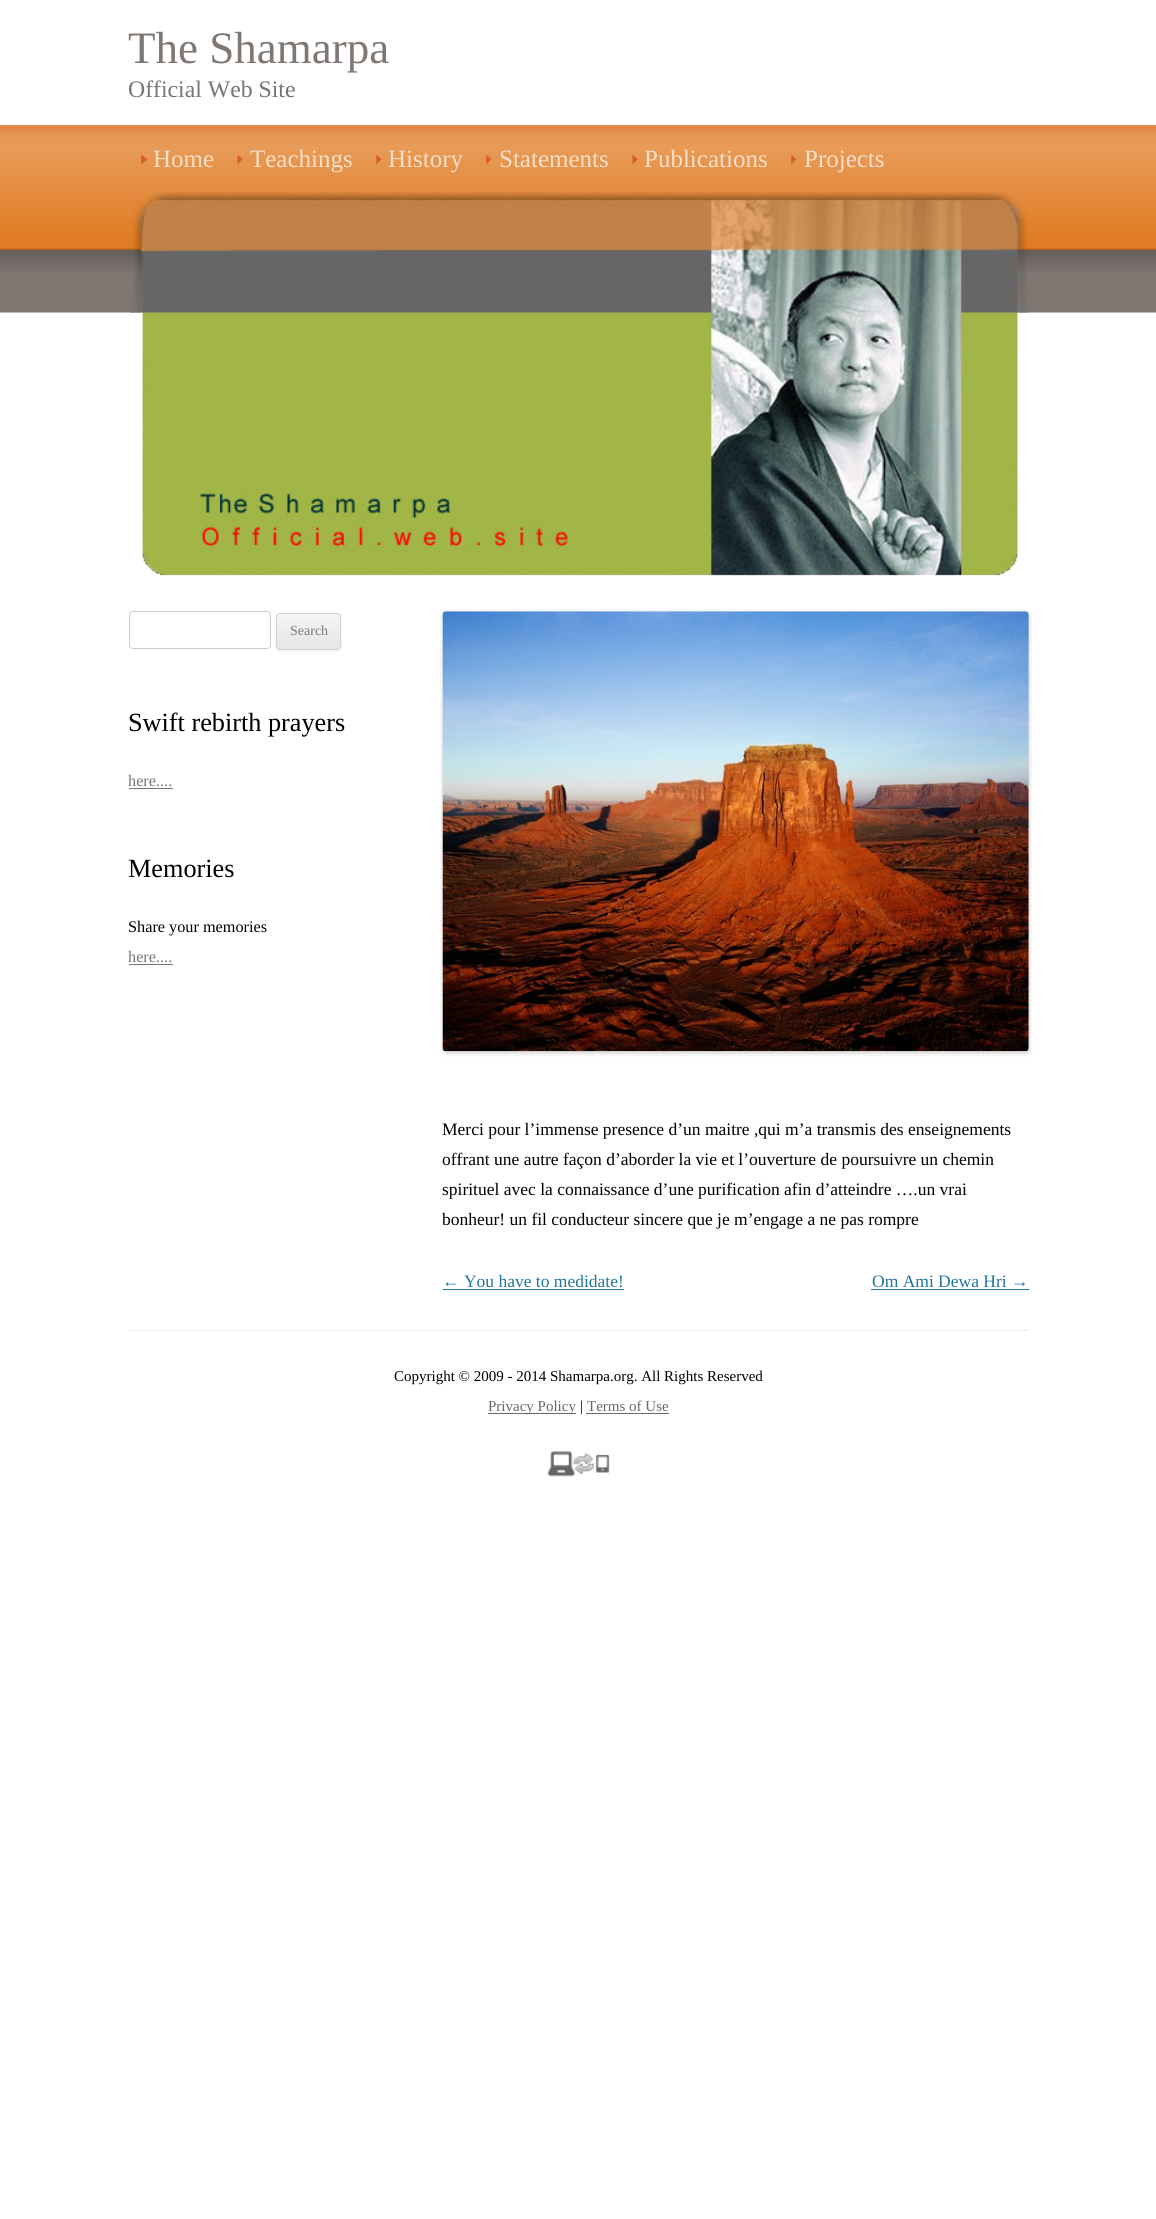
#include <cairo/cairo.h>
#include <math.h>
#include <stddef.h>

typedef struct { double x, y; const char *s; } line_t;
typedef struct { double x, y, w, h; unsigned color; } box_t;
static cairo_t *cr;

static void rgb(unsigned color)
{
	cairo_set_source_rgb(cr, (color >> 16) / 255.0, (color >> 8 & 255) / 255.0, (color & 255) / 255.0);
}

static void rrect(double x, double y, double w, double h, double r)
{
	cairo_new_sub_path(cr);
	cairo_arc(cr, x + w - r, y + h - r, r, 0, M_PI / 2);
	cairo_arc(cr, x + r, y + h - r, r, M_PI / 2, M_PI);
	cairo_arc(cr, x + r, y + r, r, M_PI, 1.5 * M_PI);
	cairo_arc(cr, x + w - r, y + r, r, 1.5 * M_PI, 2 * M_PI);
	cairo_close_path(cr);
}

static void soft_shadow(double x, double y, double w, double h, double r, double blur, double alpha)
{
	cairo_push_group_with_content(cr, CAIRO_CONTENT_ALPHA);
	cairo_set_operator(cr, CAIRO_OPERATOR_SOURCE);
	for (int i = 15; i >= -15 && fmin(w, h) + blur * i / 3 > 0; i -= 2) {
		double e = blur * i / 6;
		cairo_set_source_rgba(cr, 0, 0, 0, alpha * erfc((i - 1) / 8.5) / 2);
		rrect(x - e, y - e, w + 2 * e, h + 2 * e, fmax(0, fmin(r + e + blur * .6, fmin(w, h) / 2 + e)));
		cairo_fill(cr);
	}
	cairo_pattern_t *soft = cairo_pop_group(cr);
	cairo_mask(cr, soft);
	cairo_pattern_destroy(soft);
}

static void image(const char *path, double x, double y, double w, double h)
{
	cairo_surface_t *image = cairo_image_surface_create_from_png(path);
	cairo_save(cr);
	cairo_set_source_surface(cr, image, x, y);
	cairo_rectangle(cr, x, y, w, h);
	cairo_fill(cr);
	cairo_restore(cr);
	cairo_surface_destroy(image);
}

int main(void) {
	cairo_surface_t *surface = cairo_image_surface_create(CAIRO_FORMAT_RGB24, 1156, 2219);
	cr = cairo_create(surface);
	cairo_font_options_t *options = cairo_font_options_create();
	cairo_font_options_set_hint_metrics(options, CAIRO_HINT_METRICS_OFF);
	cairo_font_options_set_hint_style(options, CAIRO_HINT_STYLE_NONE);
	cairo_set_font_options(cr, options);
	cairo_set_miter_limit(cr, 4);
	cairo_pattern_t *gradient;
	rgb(0xffffff);
	cairo_paint(cr);
	image("img/1.png", 0, 124, 1156, 189);
	image("img/2.png", 141, 155, 7, 9);
	image("img/3.png", 237, 155, 6, 9);
	image("img/4.png", 376, 155, 6, 9);
	image("img/4.png", 486, 155, 6, 9);
	image("img/3.png", 632, 155, 6, 9);
	image("img/4.png", 791, 155, 6, 9);
	image("img/5.png", 130, 192, 899, 385);
	rrect(129.5, 611.5, 141, 37, 3.5);
	rgb(0xcccccc);
	cairo_set_line_width(cr, 1);
	cairo_stroke(cr);
	rgb(0x404040);
	soft_shadow(276, 614, 65, 37, 4, 1, 0.1);
	cairo_save(cr);
	rrect(276, 613, 65, 37, 4);
	cairo_clip(cr);
	gradient = cairo_pattern_create_linear(309, 614, 309, 649);
	cairo_pattern_add_color_stop_rgba(gradient, 0, 0.957, 0.957, 0.957, 1);
	cairo_pattern_add_color_stop_rgba(gradient, 1, 0.902, 0.902, 0.902, 1);
	cairo_set_source(cr, gradient);
	cairo_pattern_destroy(gradient);
	cairo_rectangle(cr, 276, 614, 65, 35);
	cairo_fill(cr);
	cairo_restore(cr);
	rrect(276.5, 613.5, 64, 36, 3.5);
	rgb(0xd2d2d2);
	cairo_stroke(cr);
	rgb(0x757575);
	cairo_rectangle(cr, 129, 788, 44, 1);
	cairo_fill(cr);
	cairo_rectangle(cr, 129, 964, 44, 1);
	cairo_fill(cr);
	rgb(0x000000);
	soft_shadow(443, 613, 586, 440, 4, 2.5, 0.2);
	image("img/6.png", 442, 611, 587, 441);
	{
		static const box_t items[] = {
			{443, 1289, 181, 1, 0x21759b},
			{871, 1289, 158, 1, 0x21759b},
			{129, 1330, 900, 1, 0xededed},
			{488, 1413, 88, 1, 0x686868},
			{586, 1413, 83, 1, 0x686868},
		};
		for (size_t i = 0; i < sizeof items / sizeof *items; i++) {
			rgb(items[i].color);
			cairo_rectangle(cr, items[i].x, items[i].y, items[i].w, items[i].h);
			cairo_fill(cr);
		}
	}
	image("img/7.png", 547, 1451, 63, 26);
	cairo_select_font_face(cr, "Liberation Serif", CAIRO_FONT_SLANT_NORMAL, CAIRO_FONT_WEIGHT_NORMAL);
	cairo_set_font_size(cr, 45);
	rgb(0x7f7772);
	cairo_move_to(cr, 128, 63);
	cairo_show_text(cr, "The Shamarpa");
	cairo_set_font_size(cr, 23.75);
	rgb(0x757575);
	cairo_move_to(cr, 128, 97);
	cairo_show_text(cr, "Official Web Site");
	cairo_set_font_size(cr, 25);
	rgb(0xf8dfc9);
	{
		static const line_t items[] = {
			{153, 167, "Home"},
			{250, 167, "Teachings"},
			{388, 167, "History"},
			{499, 167, "Statements"},
			{644, 167, "Publications"},
			{804, 167, "Projects"},
		};
		for (size_t i = 0; i < sizeof items / sizeof *items; i++) {
			cairo_move_to(cr, items[i].x, items[i].y);
			cairo_show_text(cr, items[i].s);
		}
	}
	cairo_set_font_size(cr, 14);
	rgb(0x7c7c7c);
	cairo_move_to(cr, 290, 635);
	cairo_show_text(cr, "Search");
	cairo_set_font_size(cr, 26.25);
	rgb(0x000000);
	cairo_move_to(cr, 128, 731);
	cairo_show_text(cr, "Swift rebirth prayers");
	cairo_set_font_size(cr, 16.25);
	rgb(0x757575);
	cairo_move_to(cr, 128, 786);
	cairo_show_text(cr, "here....");
	cairo_set_font_size(cr, 26.25);
	rgb(0x000000);
	cairo_move_to(cr, 128, 877);
	cairo_show_text(cr, "Memories");
	cairo_set_font_size(cr, 16.25);
	cairo_move_to(cr, 128, 932);
	cairo_show_text(cr, "Share your memories");
	rgb(0x757575);
	cairo_move_to(cr, 128, 962);
	cairo_show_text(cr, "here....");
	cairo_set_font_size(cr, 17.5);
	rgb(0x000000);
	{
		static const line_t items[] = {
			{442, 1135, "Merci pour l’immense presence d’un maitre ,qui m’a transmis des enseignements"},
			{442, 1165, "offrant une autre façon d’aborder la vie et l’ouverture de poursuivre un chemin"},
			{442, 1195, "spirituel avec la connaissance d’une purification afin d’atteindre ….un vrai"},
			{442, 1225, "bonheur! un fil conducteur sincere que je m’engage a ne pas rompre"},
		};
		for (size_t i = 0; i < sizeof items / sizeof *items; i++) {
			cairo_move_to(cr, items[i].x, items[i].y);
			cairo_show_text(cr, items[i].s);
		}
	}
	rgb(0x21759b);
	cairo_move_to(cr, 442, 1287);
	cairo_show_text(cr, "← You have to medidate!");
	cairo_move_to(cr, 872, 1287);
	cairo_show_text(cr, "Om Ami Dewa Hri →");
	cairo_set_font_size(cr, 15);
	rgb(0x000000);
	cairo_move_to(cr, 394, 1381);
	cairo_show_text(cr, "Copyright © 2009 - 2014 Shamarpa.org. All Rights Reserved");
	rgb(0x686868);
	cairo_move_to(cr, 488, 1411);
	cairo_show_text(cr, "Privacy Policy");
	rgb(0x000000);
	cairo_move_to(cr, 580, 1411);
	cairo_show_text(cr, "|");
	rgb(0x686868);
	cairo_move_to(cr, 587, 1411);
	cairo_show_text(cr, "Terms of Use");
	cairo_surface_write_to_png(surface, "page.png");
	cairo_font_options_destroy(options);
	cairo_destroy(cr);
	cairo_surface_destroy(surface);
	return 0;
}
